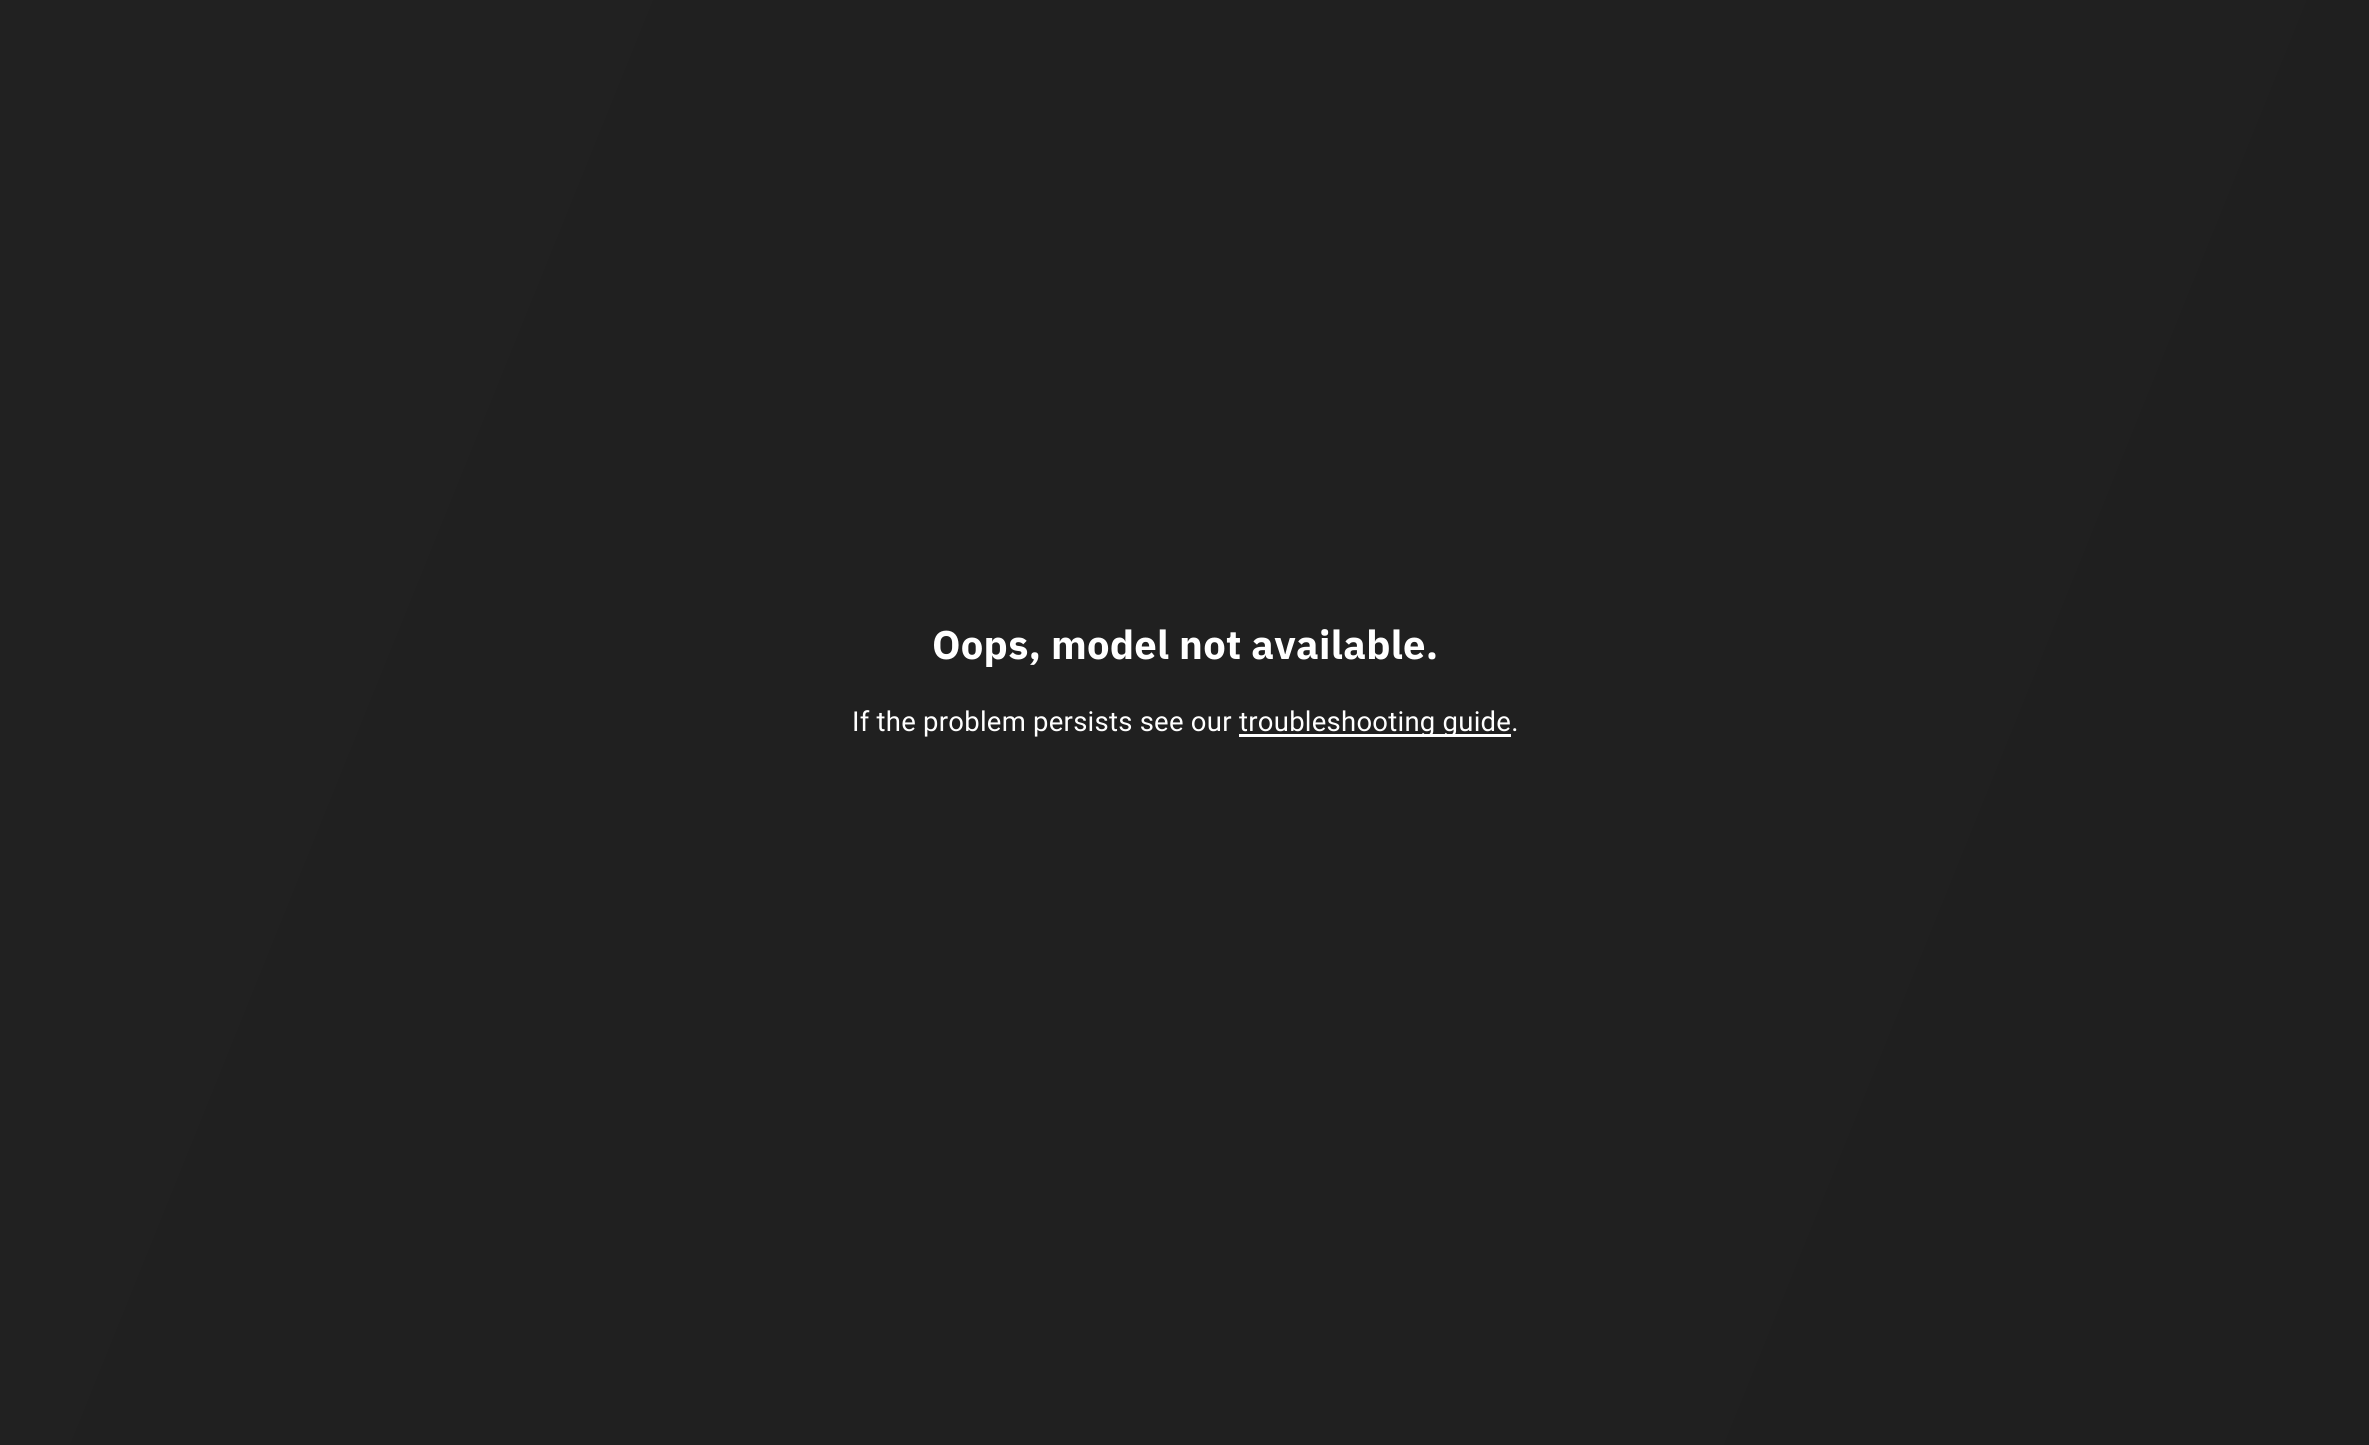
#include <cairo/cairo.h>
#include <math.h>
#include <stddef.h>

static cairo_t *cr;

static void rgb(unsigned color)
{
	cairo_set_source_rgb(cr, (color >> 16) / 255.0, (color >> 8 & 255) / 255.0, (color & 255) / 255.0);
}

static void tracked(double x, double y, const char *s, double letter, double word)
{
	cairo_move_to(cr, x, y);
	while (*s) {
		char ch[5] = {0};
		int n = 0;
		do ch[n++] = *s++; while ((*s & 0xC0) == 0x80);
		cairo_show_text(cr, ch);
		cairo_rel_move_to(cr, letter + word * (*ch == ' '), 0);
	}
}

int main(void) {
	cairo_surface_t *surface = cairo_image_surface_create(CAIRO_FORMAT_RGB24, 2369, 1445);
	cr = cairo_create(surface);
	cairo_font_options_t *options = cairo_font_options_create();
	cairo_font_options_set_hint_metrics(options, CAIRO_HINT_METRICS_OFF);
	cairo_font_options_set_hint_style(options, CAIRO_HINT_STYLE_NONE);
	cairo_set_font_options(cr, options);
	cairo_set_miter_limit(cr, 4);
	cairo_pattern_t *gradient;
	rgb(0xffffff);
	cairo_paint(cr);
	gradient = cairo_pattern_create_linear(-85, 210, 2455, 1235);
	cairo_pattern_add_color_stop_rgba(gradient, 0, 0.129, 0.129, 0.129, 1);
	cairo_pattern_add_color_stop_rgba(gradient, 1, 0.122, 0.122, 0.122, 1);
	cairo_set_source(cr, gradient);
	cairo_pattern_destroy(gradient);
	cairo_rectangle(cr, 0, 0, 2369, 1445);
	cairo_fill(cr);
	rgb(0xffffff);
	cairo_rectangle(cr, 1239, 734, 272, 3);
	cairo_fill(cr);
	cairo_select_font_face(cr, "IBM Plex Sans", CAIRO_FONT_SLANT_NORMAL, CAIRO_FONT_WEIGHT_BOLD);
	cairo_set_font_size(cr, 40);
	tracked(932, 659, "Oops, model not available.", 0.25, 0);
	cairo_select_font_face(cr, "Roboto", CAIRO_FONT_SLANT_NORMAL, CAIRO_FONT_WEIGHT_NORMAL);
	cairo_set_font_size(cr, 27.5);
	tracked(852, 731, "If the problem persists see our", 0.25, 0);
	tracked(1239, 731, "troubleshooting guide.", 0.25, 0);
	cairo_surface_write_to_png(surface, "page.png");
	cairo_font_options_destroy(options);
	cairo_destroy(cr);
	cairo_surface_destroy(surface);
	return 0;
}
